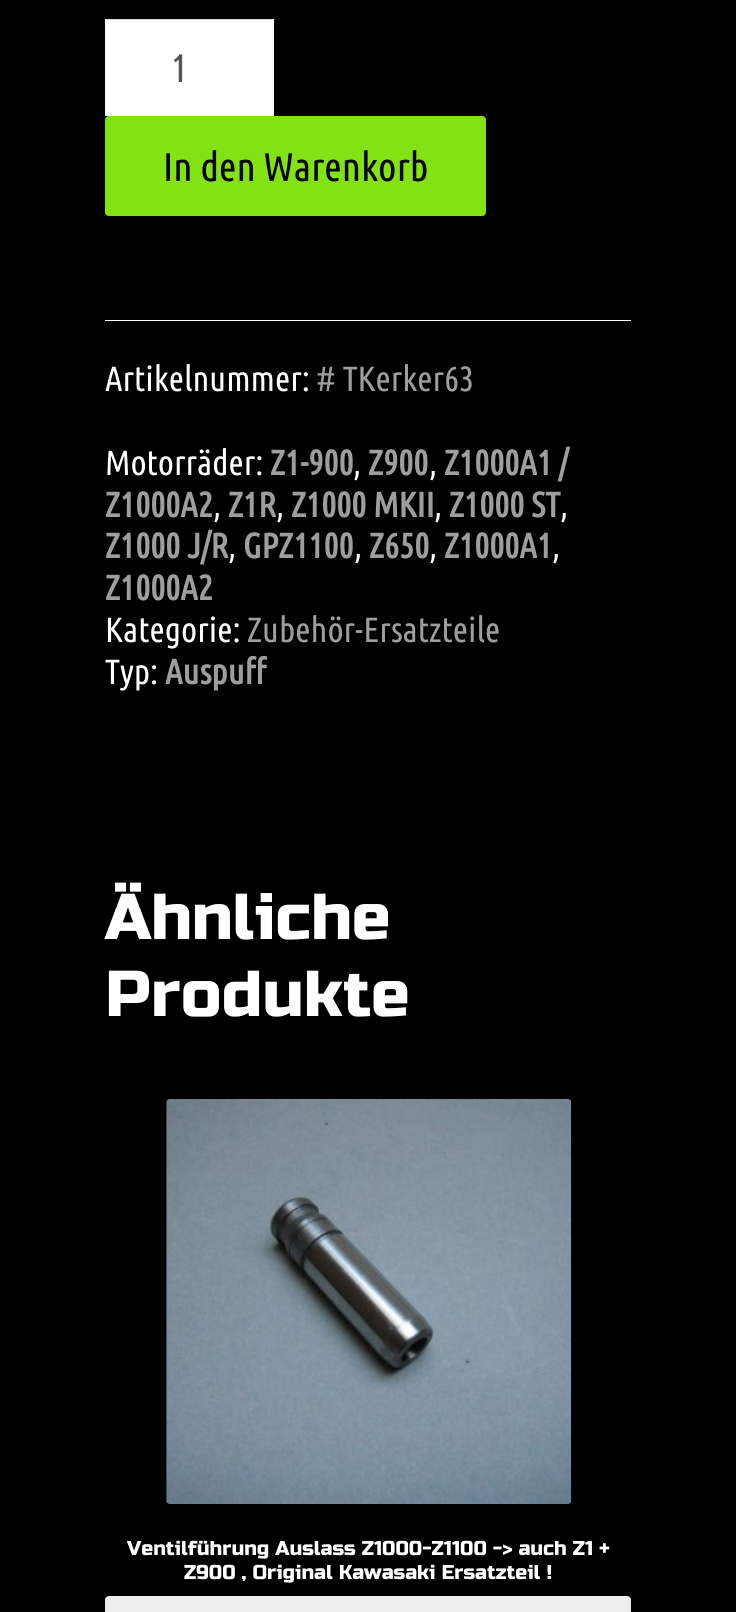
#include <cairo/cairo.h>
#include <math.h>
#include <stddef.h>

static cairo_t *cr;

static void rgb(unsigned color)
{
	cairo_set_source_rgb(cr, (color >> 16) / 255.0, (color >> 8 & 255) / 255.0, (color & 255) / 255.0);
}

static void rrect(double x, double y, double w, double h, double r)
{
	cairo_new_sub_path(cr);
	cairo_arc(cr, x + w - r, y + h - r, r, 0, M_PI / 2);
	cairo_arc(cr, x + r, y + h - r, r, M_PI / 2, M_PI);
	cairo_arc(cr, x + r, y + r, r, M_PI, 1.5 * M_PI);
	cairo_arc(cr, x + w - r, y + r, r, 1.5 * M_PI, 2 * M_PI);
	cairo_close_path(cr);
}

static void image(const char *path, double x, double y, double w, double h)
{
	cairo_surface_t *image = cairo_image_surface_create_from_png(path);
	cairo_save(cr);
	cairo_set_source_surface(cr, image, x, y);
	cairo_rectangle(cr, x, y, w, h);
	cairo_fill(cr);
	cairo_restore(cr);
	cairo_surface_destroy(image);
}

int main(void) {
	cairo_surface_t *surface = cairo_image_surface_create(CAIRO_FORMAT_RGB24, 736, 1612);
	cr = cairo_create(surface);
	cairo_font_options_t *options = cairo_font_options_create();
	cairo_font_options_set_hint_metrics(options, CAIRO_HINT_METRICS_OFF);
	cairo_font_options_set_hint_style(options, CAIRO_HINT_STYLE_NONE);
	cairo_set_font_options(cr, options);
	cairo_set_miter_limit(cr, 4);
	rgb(0x000000);
	cairo_paint(cr);
	rgb(0xffffff);
	cairo_rectangle(cr, 105, 20, 169, 96);
	cairo_fill(cr);
	rgb(0xdfdfdf);
	cairo_rectangle(cr, 105, 19, 169, 1);
	cairo_fill(cr);
	rgb(0x82e214);
	rrect(105.5, 116.5, 380, 99, 3.5);
	cairo_fill_preserve(cr);
	cairo_set_line_width(cr, 1);
	cairo_stroke(cr);
	rgb(0xffffff);
	cairo_rectangle(cr, 105, 320, 526, 1);
	cairo_fill(cr);
	image("img/1.png", 166, 1099, 406, 405);
	rgb(0xeeeeef);
	rrect(105, 1596, 526, 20, 4);
	cairo_fill(cr);
	cairo_select_font_face(cr, "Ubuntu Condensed", CAIRO_FONT_SLANT_NORMAL, CAIRO_FONT_WEIGHT_NORMAL);
	cairo_set_font_size(cr, 40);
	rgb(0x575756);
	cairo_move_to(cr, 171, 82);
	cairo_show_text(cr, "1");
	rgb(0x000000);
	cairo_move_to(cr, 163, 181);
	cairo_show_text(cr, "In den Warenkorb");
	cairo_set_font_size(cr, 35);
	rgb(0xffffff);
	cairo_move_to(cr, 105, 391);
	cairo_show_text(cr, "Artikelnummer:");
	rgb(0x9c9e9f);
	cairo_move_to(cr, 316, 391);
	cairo_show_text(cr, "# TKerker63");
	rgb(0xffffff);
	cairo_move_to(cr, 105, 475);
	cairo_show_text(cr, "Motorräder:");
	cairo_select_font_face(cr, "Ubuntu Condensed", CAIRO_FONT_SLANT_NORMAL, CAIRO_FONT_WEIGHT_BOLD);
	rgb(0x9c9e9f);
	cairo_move_to(cr, 270, 475);
	cairo_show_text(cr, "Z1-900");
	cairo_select_font_face(cr, "Ubuntu Condensed", CAIRO_FONT_SLANT_NORMAL, CAIRO_FONT_WEIGHT_NORMAL);
	rgb(0xffffff);
	cairo_move_to(cr, 353, 475);
	cairo_show_text(cr, ",");
	cairo_select_font_face(cr, "Ubuntu Condensed", CAIRO_FONT_SLANT_NORMAL, CAIRO_FONT_WEIGHT_BOLD);
	rgb(0x9c9e9f);
	cairo_move_to(cr, 368, 475);
	cairo_show_text(cr, "Z900");
	cairo_select_font_face(cr, "Ubuntu Condensed", CAIRO_FONT_SLANT_NORMAL, CAIRO_FONT_WEIGHT_NORMAL);
	rgb(0xffffff);
	cairo_move_to(cr, 429, 475);
	cairo_show_text(cr, ",");
	cairo_select_font_face(cr, "Ubuntu Condensed", CAIRO_FONT_SLANT_NORMAL, CAIRO_FONT_WEIGHT_BOLD);
	rgb(0x9c9e9f);
	cairo_move_to(cr, 444, 475);
	cairo_show_text(cr, "Z1000A1 /");
	cairo_move_to(cr, 105, 517);
	cairo_show_text(cr, "Z1000A2");
	cairo_select_font_face(cr, "Ubuntu Condensed", CAIRO_FONT_SLANT_NORMAL, CAIRO_FONT_WEIGHT_NORMAL);
	rgb(0xffffff);
	cairo_move_to(cr, 213, 517);
	cairo_show_text(cr, ",");
	cairo_select_font_face(cr, "Ubuntu Condensed", CAIRO_FONT_SLANT_NORMAL, CAIRO_FONT_WEIGHT_BOLD);
	rgb(0x9c9e9f);
	cairo_move_to(cr, 228, 517);
	cairo_show_text(cr, "Z1R");
	cairo_select_font_face(cr, "Ubuntu Condensed", CAIRO_FONT_SLANT_NORMAL, CAIRO_FONT_WEIGHT_NORMAL);
	rgb(0xffffff);
	cairo_move_to(cr, 276, 517);
	cairo_show_text(cr, ",");
	cairo_select_font_face(cr, "Ubuntu Condensed", CAIRO_FONT_SLANT_NORMAL, CAIRO_FONT_WEIGHT_BOLD);
	rgb(0x9c9e9f);
	cairo_move_to(cr, 291, 517);
	cairo_show_text(cr, "Z1000 MKII");
	cairo_select_font_face(cr, "Ubuntu Condensed", CAIRO_FONT_SLANT_NORMAL, CAIRO_FONT_WEIGHT_NORMAL);
	rgb(0xffffff);
	cairo_move_to(cr, 434, 517);
	cairo_show_text(cr, ",");
	cairo_select_font_face(cr, "Ubuntu Condensed", CAIRO_FONT_SLANT_NORMAL, CAIRO_FONT_WEIGHT_BOLD);
	rgb(0x9c9e9f);
	cairo_move_to(cr, 449, 517);
	cairo_show_text(cr, "Z1000 ST");
	cairo_select_font_face(cr, "Ubuntu Condensed", CAIRO_FONT_SLANT_NORMAL, CAIRO_FONT_WEIGHT_NORMAL);
	rgb(0xffffff);
	cairo_move_to(cr, 560, 517);
	cairo_show_text(cr, ",");
	cairo_select_font_face(cr, "Ubuntu Condensed", CAIRO_FONT_SLANT_NORMAL, CAIRO_FONT_WEIGHT_BOLD);
	rgb(0x9c9e9f);
	cairo_move_to(cr, 105, 558);
	cairo_show_text(cr, "Z1000 J/R");
	cairo_select_font_face(cr, "Ubuntu Condensed", CAIRO_FONT_SLANT_NORMAL, CAIRO_FONT_WEIGHT_NORMAL);
	rgb(0xffffff);
	cairo_move_to(cr, 228, 558);
	cairo_show_text(cr, ",");
	cairo_select_font_face(cr, "Ubuntu Condensed", CAIRO_FONT_SLANT_NORMAL, CAIRO_FONT_WEIGHT_BOLD);
	rgb(0x9c9e9f);
	cairo_move_to(cr, 243, 558);
	cairo_show_text(cr, "GPZ1100");
	cairo_select_font_face(cr, "Ubuntu Condensed", CAIRO_FONT_SLANT_NORMAL, CAIRO_FONT_WEIGHT_NORMAL);
	rgb(0xffffff);
	cairo_move_to(cr, 354, 558);
	cairo_show_text(cr, ",");
	cairo_select_font_face(cr, "Ubuntu Condensed", CAIRO_FONT_SLANT_NORMAL, CAIRO_FONT_WEIGHT_BOLD);
	rgb(0x9c9e9f);
	cairo_move_to(cr, 369, 558);
	cairo_show_text(cr, "Z650");
	cairo_select_font_face(cr, "Ubuntu Condensed", CAIRO_FONT_SLANT_NORMAL, CAIRO_FONT_WEIGHT_NORMAL);
	rgb(0xffffff);
	cairo_move_to(cr, 429, 558);
	cairo_show_text(cr, ",");
	cairo_select_font_face(cr, "Ubuntu Condensed", CAIRO_FONT_SLANT_NORMAL, CAIRO_FONT_WEIGHT_BOLD);
	rgb(0x9c9e9f);
	cairo_move_to(cr, 444, 558);
	cairo_show_text(cr, "Z1000A1");
	cairo_select_font_face(cr, "Ubuntu Condensed", CAIRO_FONT_SLANT_NORMAL, CAIRO_FONT_WEIGHT_NORMAL);
	rgb(0xffffff);
	cairo_move_to(cr, 552, 558);
	cairo_show_text(cr, ",");
	cairo_select_font_face(cr, "Ubuntu Condensed", CAIRO_FONT_SLANT_NORMAL, CAIRO_FONT_WEIGHT_BOLD);
	rgb(0x9c9e9f);
	cairo_move_to(cr, 105, 600);
	cairo_show_text(cr, "Z1000A2");
	cairo_select_font_face(cr, "Ubuntu Condensed", CAIRO_FONT_SLANT_NORMAL, CAIRO_FONT_WEIGHT_NORMAL);
	rgb(0xffffff);
	cairo_move_to(cr, 105, 642);
	cairo_show_text(cr, "Kategorie:");
	rgb(0x9c9e9f);
	cairo_move_to(cr, 247, 642);
	cairo_show_text(cr, "Zubehör-Ersatzteile");
	rgb(0xffffff);
	cairo_move_to(cr, 105, 684);
	cairo_show_text(cr, "Typ:");
	cairo_select_font_face(cr, "Ubuntu Condensed", CAIRO_FONT_SLANT_NORMAL, CAIRO_FONT_WEIGHT_BOLD);
	rgb(0x9c9e9f);
	cairo_move_to(cr, 165, 684);
	cairo_show_text(cr, "Auspuff");
	cairo_select_font_face(cr, "Russo One", CAIRO_FONT_SLANT_NORMAL, CAIRO_FONT_WEIGHT_NORMAL);
	cairo_set_font_size(cr, 64.75);
	rgb(0xffffff);
	cairo_move_to(cr, 105, 939);
	cairo_show_text(cr, "Ähnliche");
	cairo_move_to(cr, 105, 1016);
	cairo_show_text(cr, "Produkte");
	cairo_set_font_size(cr, 20);
	cairo_move_to(cr, 127, 1555);
	cairo_show_text(cr, "Ventilführung Auslass Z1000-Z1100 -> auch Z1 +");
	cairo_move_to(cr, 184, 1579);
	cairo_show_text(cr, "Z900 , Original Kawasaki Ersatzteil !");
	cairo_surface_write_to_png(surface, "page.png");
	cairo_font_options_destroy(options);
	cairo_destroy(cr);
	cairo_surface_destroy(surface);
	return 0;
}
